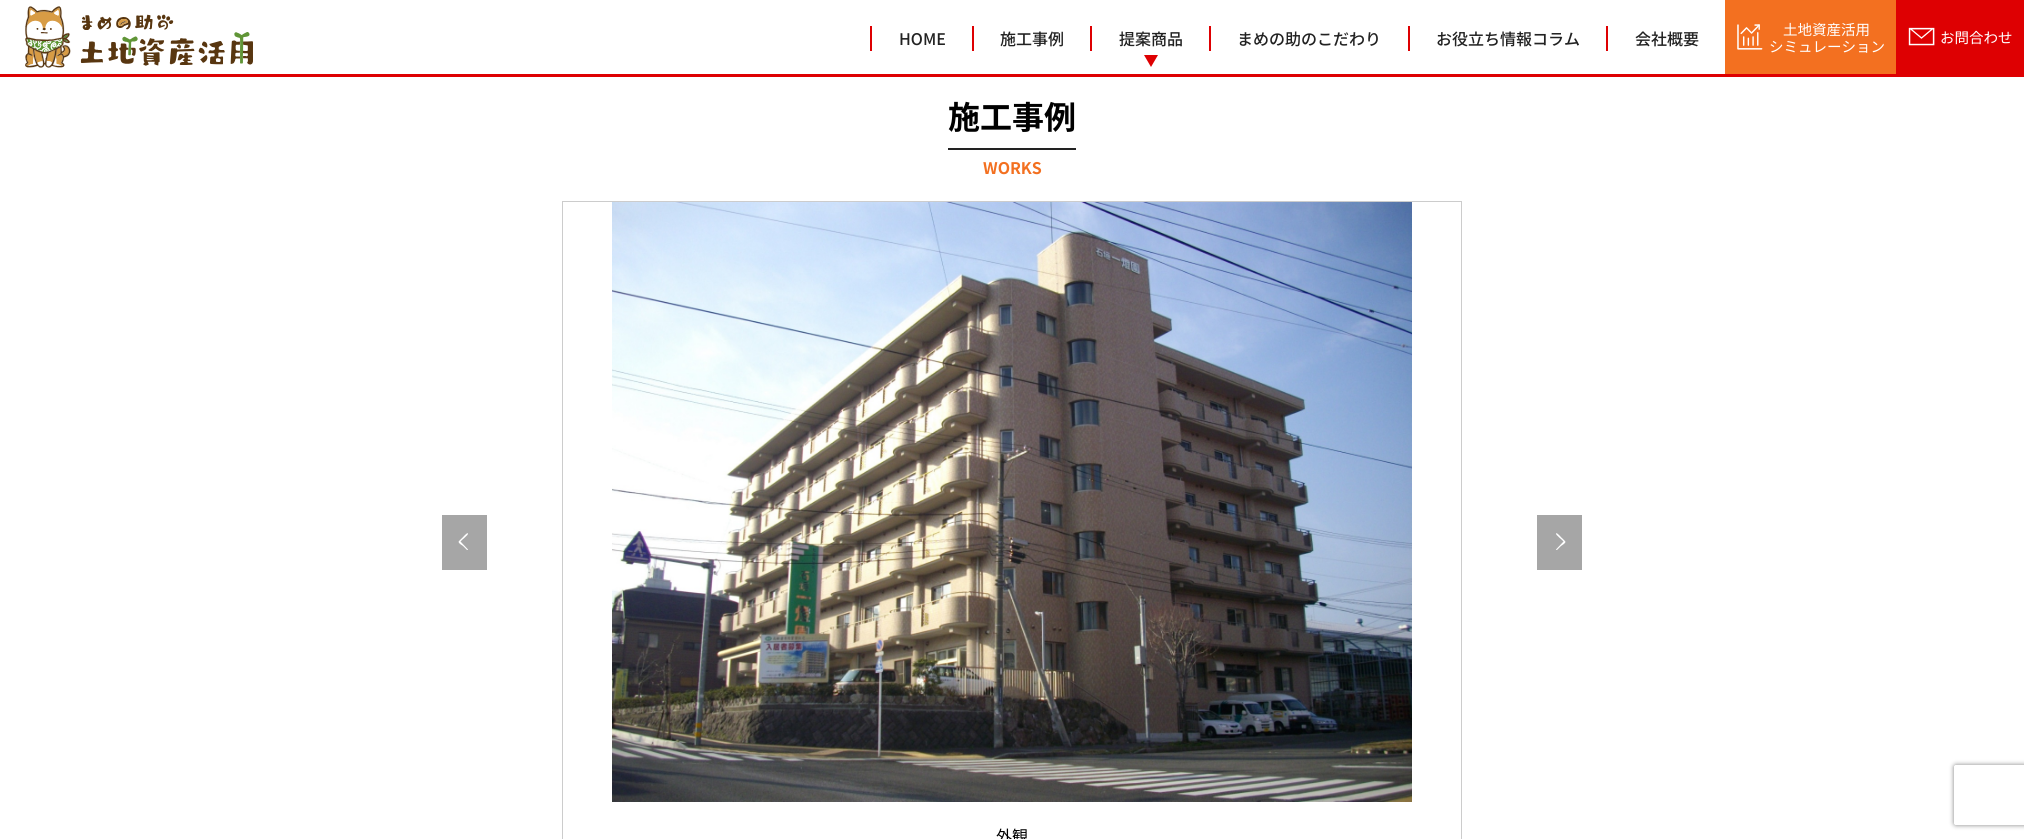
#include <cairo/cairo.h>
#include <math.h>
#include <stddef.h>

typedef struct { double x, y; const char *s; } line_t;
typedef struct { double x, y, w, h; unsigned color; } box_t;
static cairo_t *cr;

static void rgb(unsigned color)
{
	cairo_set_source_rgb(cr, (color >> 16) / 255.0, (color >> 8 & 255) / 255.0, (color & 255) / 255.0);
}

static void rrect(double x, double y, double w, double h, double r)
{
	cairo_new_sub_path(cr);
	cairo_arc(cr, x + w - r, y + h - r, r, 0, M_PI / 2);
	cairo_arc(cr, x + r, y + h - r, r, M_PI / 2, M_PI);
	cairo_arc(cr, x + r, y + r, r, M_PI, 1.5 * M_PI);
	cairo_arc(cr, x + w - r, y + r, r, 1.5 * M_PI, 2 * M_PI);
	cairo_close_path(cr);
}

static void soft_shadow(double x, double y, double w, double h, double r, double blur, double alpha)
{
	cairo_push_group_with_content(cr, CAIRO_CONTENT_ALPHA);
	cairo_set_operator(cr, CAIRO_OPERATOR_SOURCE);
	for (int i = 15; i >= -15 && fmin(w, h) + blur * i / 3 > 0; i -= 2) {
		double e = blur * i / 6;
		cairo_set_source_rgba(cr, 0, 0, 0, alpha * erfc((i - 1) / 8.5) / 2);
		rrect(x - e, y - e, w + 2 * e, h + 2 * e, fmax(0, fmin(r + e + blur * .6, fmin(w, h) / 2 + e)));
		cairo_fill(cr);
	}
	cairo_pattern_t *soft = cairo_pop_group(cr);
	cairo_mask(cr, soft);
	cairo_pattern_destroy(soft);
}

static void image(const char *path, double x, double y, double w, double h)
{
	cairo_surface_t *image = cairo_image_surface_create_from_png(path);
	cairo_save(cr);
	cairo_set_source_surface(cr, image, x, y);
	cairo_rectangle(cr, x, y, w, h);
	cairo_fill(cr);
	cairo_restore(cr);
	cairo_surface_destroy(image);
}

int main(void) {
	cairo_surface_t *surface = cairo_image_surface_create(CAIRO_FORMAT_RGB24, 2024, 839);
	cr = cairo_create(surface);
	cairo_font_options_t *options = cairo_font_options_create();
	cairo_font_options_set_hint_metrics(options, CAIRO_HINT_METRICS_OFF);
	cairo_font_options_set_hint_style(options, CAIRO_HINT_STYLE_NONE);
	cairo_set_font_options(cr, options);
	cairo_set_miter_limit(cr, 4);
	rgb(0xffffff);
	cairo_paint(cr);
	rgb(0xde0002);
	cairo_rectangle(cr, 0, 74, 2024, 3);
	cairo_fill(cr);
	image("img/1.png", 25, 6, 228, 62);
	{
		static const box_t items[] = {
			{870, 26, 2, 25, 0xde0002},
			{972, 26, 2, 25, 0xde0002},
			{1090, 26, 2, 25, 0xde0002},
		};
		for (size_t i = 0; i < sizeof items / sizeof *items; i++) {
			rgb(items[i].color);
			cairo_rectangle(cr, items[i].x, items[i].y, items[i].w, items[i].h);
			cairo_fill(cr);
		}
	}
	cairo_new_path(cr);
	cairo_move_to(cr, 1151, 67);
	cairo_line_to(cr, 1144, 55);
	cairo_line_to(cr, 1158, 55);
	cairo_close_path(cr);
	cairo_fill(cr);
	{
		static const box_t items[] = {
			{1209, 26, 2, 25, 0xde0002},
			{1408, 26, 2, 25, 0xde0002},
			{1606, 26, 2, 25, 0xde0002},
			{1725, 0, 171, 74, 0xf37020},
		};
		for (size_t i = 0; i < sizeof items / sizeof *items; i++) {
			rgb(items[i].color);
			cairo_rectangle(cr, items[i].x, items[i].y, items[i].w, items[i].h);
			cairo_fill(cr);
		}
	}
	image("img/2.png", 1737, 24, 26, 26);
	rgb(0xde0002);
	cairo_rectangle(cr, 1896, 0, 128, 74);
	cairo_fill(cr);
	image("img/3.png", 1908, 27, 27, 19);
	rgb(0x222222);
	cairo_rectangle(cr, 948, 148, 128, 2);
	cairo_fill(cr);
	rgb(0xa6a6a6);
	cairo_rectangle(cr, 442, 515, 45, 55);
	cairo_fill(cr);
	rgb(0xffffff);
	cairo_set_fill_rule(cr, CAIRO_FILL_RULE_EVEN_ODD);
	cairo_new_path(cr);
	cairo_move_to(cr, 468, 549.5);
	cairo_line_to(cr, 460.5, 541.5);
	cairo_curve_to(cr, 461.5, 540, 468.5, 535, 468, 533.5);
	cairo_curve_to(cr, 467.5, 532.5, 466, 534, 464, 536);
	cairo_curve_to(cr, 463.5, 537, 458.5, 541, 458.5, 542);
	cairo_curve_to(cr, 459, 543.5, 461.5, 545, 463, 546);
	cairo_line_to(cr, 467, 550);
	cairo_curve_to(cr, 467.5, 550, 468, 550, 468, 549.5);
	cairo_close_path(cr);
	cairo_fill(cr);
	rgb(0xa6a6a6);
	cairo_rectangle(cr, 1537, 515, 45, 55);
	cairo_fill(cr);
	rgb(0xffffff);
	cairo_new_path(cr);
	cairo_move_to(cr, 1556, 549.5);
	cairo_line_to(cr, 1563.5, 541.5);
	cairo_curve_to(cr, 1562.5, 540, 1555.5, 535, 1556, 533.5);
	cairo_curve_to(cr, 1556.5, 532.5, 1558, 534, 1560, 536);
	cairo_curve_to(cr, 1560.5, 537, 1565.5, 541, 1565.5, 542);
	cairo_curve_to(cr, 1565, 543.5, 1562.5, 545, 1561, 546);
	cairo_line_to(cr, 1557, 550);
	cairo_curve_to(cr, 1556.5, 550, 1556, 550, 1556, 549.5);
	cairo_close_path(cr);
	cairo_fill(cr);
	cairo_rectangle(cr, 562.5, 201.5, 899, 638);
	rgb(0xcccccc);
	cairo_set_line_width(cr, 1);
	cairo_stroke(cr);
	image("img/4.png", 612, 202, 800, 600);
	cairo_save(cr);
	cairo_new_path(cr);
	cairo_move_to(cr, 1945, 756);
	cairo_line_to(cr, 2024, 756);
	cairo_line_to(cr, 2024, 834);
	cairo_line_to(cr, 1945, 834);
	cairo_close_path(cr);
	cairo_move_to(cr, 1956, 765);
	cairo_line_to(cr, 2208, 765);
	cairo_curve_to(cr, 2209, 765, 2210, 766, 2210, 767);
	cairo_line_to(cr, 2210, 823);
	cairo_curve_to(cr, 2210, 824, 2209, 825, 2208, 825);
	cairo_line_to(cr, 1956, 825);
	cairo_curve_to(cr, 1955, 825, 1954, 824, 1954, 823);
	cairo_line_to(cr, 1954, 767);
	cairo_curve_to(cr, 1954, 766, 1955, 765, 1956, 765);
	cairo_close_path(cr);
	cairo_clip(cr);
	rgb(0x808080);
	soft_shadow(1954, 765, 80, 60, 2, 2.5, 1);
	cairo_restore(cr);
	cairo_select_font_face(cr, "Noto Sans JP Medium", CAIRO_FONT_SLANT_NORMAL, CAIRO_FONT_WEIGHT_NORMAL);
	cairo_set_font_size(cr, 16);
	rgb(0x222222);
	{
		static const line_t items[] = {
			{899, 45, "HOME"},
			{1000, 45, "施工事例"},
			{1119, 45, "提案商品"},
			{1237, 45, "まめの助のこだわり"},
			{1436, 45, "お役立ち情報コラム"},
			{1635, 45, "会社概要"},
		};
		for (size_t i = 0; i < sizeof items / sizeof *items; i++) {
			cairo_move_to(cr, items[i].x, items[i].y);
			cairo_show_text(cr, items[i].s);
		}
	}
	cairo_select_font_face(cr, "Noto Sans JP", CAIRO_FONT_SLANT_NORMAL, CAIRO_FONT_WEIGHT_NORMAL);
	cairo_set_font_size(cr, 14.5);
	rgb(0xffffff);
	{
		static const line_t items[] = {
			{1783, 35, "土地資産活用"},
			{1769, 52, "シミュレーション"},
			{1940, 43, "お問合わせ"},
		};
		for (size_t i = 0; i < sizeof items / sizeof *items; i++) {
			cairo_move_to(cr, items[i].x, items[i].y);
			cairo_show_text(cr, items[i].s);
		}
	}
	cairo_select_font_face(cr, "Noto Sans JP", CAIRO_FONT_SLANT_NORMAL, CAIRO_FONT_WEIGHT_BOLD);
	cairo_set_font_size(cr, 32);
	rgb(0x000000);
	cairo_move_to(cr, 948, 129);
	cairo_show_text(cr, "施工事例");
	cairo_set_font_size(cr, 16);
	rgb(0xf37020);
	cairo_move_to(cr, 983, 174);
	cairo_show_text(cr, "WORKS");
	cairo_select_font_face(cr, "Noto Sans JP", CAIRO_FONT_SLANT_NORMAL, CAIRO_FONT_WEIGHT_NORMAL);
	rgb(0x000000);
	cairo_move_to(cr, 996, 842);
	cairo_show_text(cr, "外観");
	cairo_surface_write_to_png(surface, "page.png");
	cairo_font_options_destroy(options);
	cairo_destroy(cr);
	cairo_surface_destroy(surface);
	return 0;
}
